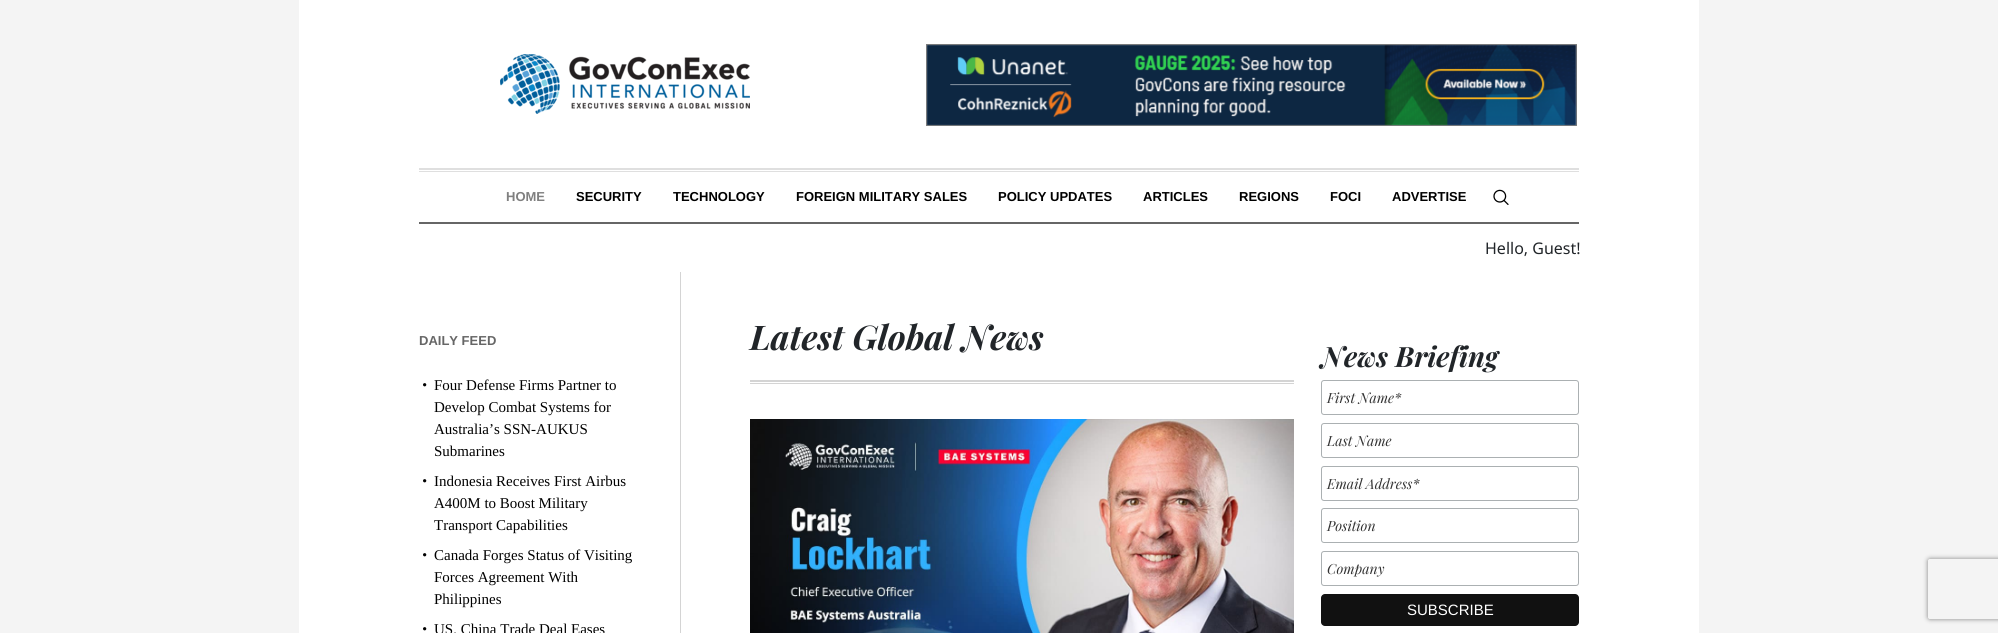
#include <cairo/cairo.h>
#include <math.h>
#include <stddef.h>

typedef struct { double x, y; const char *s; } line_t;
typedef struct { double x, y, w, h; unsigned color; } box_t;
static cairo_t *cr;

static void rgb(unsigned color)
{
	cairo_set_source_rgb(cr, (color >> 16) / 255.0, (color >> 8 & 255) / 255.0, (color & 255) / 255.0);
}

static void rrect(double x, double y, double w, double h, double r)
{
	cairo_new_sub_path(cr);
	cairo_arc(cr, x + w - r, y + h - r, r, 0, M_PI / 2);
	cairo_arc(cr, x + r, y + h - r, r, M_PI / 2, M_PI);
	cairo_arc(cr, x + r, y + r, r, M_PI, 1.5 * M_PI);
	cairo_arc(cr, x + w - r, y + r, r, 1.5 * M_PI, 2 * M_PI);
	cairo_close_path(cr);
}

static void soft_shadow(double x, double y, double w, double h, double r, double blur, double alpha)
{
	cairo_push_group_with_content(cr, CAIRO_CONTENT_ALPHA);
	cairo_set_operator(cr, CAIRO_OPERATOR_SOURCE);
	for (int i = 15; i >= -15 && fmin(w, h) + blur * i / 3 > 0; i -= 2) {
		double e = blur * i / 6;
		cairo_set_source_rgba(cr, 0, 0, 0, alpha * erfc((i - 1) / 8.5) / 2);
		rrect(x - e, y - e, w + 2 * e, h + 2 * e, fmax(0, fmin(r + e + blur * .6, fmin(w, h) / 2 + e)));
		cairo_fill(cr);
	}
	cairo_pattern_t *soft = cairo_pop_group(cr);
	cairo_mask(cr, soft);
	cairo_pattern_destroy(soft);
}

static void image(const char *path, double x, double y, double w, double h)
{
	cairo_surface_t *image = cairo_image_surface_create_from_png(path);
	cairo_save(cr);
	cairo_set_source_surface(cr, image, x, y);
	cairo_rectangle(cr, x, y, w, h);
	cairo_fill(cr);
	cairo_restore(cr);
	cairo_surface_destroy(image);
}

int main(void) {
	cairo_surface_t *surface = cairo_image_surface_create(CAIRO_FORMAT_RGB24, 1998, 633);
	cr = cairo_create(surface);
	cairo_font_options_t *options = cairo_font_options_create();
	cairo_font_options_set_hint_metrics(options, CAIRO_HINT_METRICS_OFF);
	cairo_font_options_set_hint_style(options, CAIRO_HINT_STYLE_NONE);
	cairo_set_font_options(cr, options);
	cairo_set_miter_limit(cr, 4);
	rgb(0xf4f4f4);
	cairo_paint(cr);
	rgb(0xffffff);
	cairo_rectangle(cr, 299, 0, 1400, 633);
	cairo_fill(cr);
	image("img/1.png", 500, 54, 250, 60);
	cairo_rectangle(cr, 926.5, 44.5, 650, 81);
	rgb(0x808080);
	cairo_set_line_width(cr, 1);
	cairo_stroke(cr);
	image("img/2.png", 926, 44, 651, 82);
	{
		static const box_t items[] = {
			{419, 171, 1160, 1, 0xdfdfdf},
			{419, 168, 1160, 2, 0xdfdfdf},
			{419, 222, 1160, 2, 0x666666},
		};
		for (size_t i = 0; i < sizeof items / sizeof *items; i++) {
			rgb(items[i].color);
			cairo_rectangle(cr, items[i].x, items[i].y, items[i].w, items[i].h);
			cairo_fill(cr);
		}
	}
	image("img/3.png", 1493, 189, 16, 16);
	image("img/4.png", 423, 383, 4, 4);
	image("img/4.png", 423, 479, 4, 4);
	image("img/4.png", 423, 553, 4, 4);
	image("img/4.png", 423, 627, 4, 4);
	{
		static const box_t items[] = {
			{680, 272, 1, 361, 0xd4d4d4},
			{750, 380, 544, 2, 0xd4d4d4},
			{750, 383, 544, 1, 0xd4d4d4},
		};
		for (size_t i = 0; i < sizeof items / sizeof *items; i++) {
			rgb(items[i].color);
			cairo_rectangle(cr, items[i].x, items[i].y, items[i].w, items[i].h);
			cairo_fill(cr);
		}
	}
	image("img/5.png", 750, 419, 544, 214);
	rrect(1321.5, 380.5, 257, 34, 2.5);
	rgb(0xabb0b2);
	cairo_stroke(cr);
	rrect(1321.5, 423.5, 257, 34, 2.5);
	cairo_stroke(cr);
	rrect(1321.5, 466.5, 257, 34, 2.5);
	cairo_stroke(cr);
	rrect(1321.5, 508.5, 257, 34, 2.5);
	cairo_stroke(cr);
	rrect(1321.5, 551.5, 257, 34, 2.5);
	cairo_stroke(cr);
	rgb(0x111111);
	rrect(1321, 594, 258, 32, 4);
	cairo_fill(cr);
	cairo_save(cr);
	cairo_set_fill_rule(cr, CAIRO_FILL_RULE_EVEN_ODD);
	cairo_new_path(cr);
	cairo_move_to(cr, 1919, 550);
	cairo_line_to(cr, 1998, 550);
	cairo_line_to(cr, 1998, 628);
	cairo_line_to(cr, 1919, 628);
	cairo_close_path(cr);
	cairo_move_to(cr, 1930, 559);
	cairo_line_to(cr, 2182, 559);
	cairo_curve_to(cr, 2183, 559, 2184, 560, 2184, 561);
	cairo_line_to(cr, 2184, 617);
	cairo_curve_to(cr, 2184, 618, 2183, 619, 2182, 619);
	cairo_line_to(cr, 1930, 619);
	cairo_curve_to(cr, 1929, 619, 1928, 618, 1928, 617);
	cairo_line_to(cr, 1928, 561);
	cairo_curve_to(cr, 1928, 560, 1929, 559, 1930, 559);
	cairo_close_path(cr);
	cairo_clip(cr);
	rgb(0x808080);
	soft_shadow(1928, 559, 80, 60, 2, 2.5, 1);
	cairo_restore(cr);
	cairo_select_font_face(cr, "Liberation Sans", CAIRO_FONT_SLANT_NORMAL, CAIRO_FONT_WEIGHT_BOLD);
	cairo_set_font_size(cr, 13);
	rgb(0x808080);
	cairo_move_to(cr, 506, 201);
	cairo_show_text(cr, "HOME");
	rgb(0x000000);
	{
		static const line_t items[] = {
			{576, 201, "SECURITY"},
			{673, 201, "TECHNOLOGY"},
			{796, 201, "FOREIGN MILITARY SALES"},
			{998, 201, "POLICY UPDATES"},
			{1143, 201, "ARTICLES"},
			{1239, 201, "REGIONS"},
			{1330, 201, "FOCI"},
			{1392, 201, "ADVERTISE"},
		};
		for (size_t i = 0; i < sizeof items / sizeof *items; i++) {
			cairo_move_to(cr, items[i].x, items[i].y);
			cairo_show_text(cr, items[i].s);
		}
	}
	cairo_select_font_face(cr, "Noto Sans", CAIRO_FONT_SLANT_NORMAL, CAIRO_FONT_WEIGHT_NORMAL);
	cairo_set_font_size(cr, 16);
	rgb(0x212529);
	cairo_move_to(cr, 1485, 254);
	cairo_show_text(cr, "Hello, Guest!");
	cairo_select_font_face(cr, "Liberation Sans", CAIRO_FONT_SLANT_NORMAL, CAIRO_FONT_WEIGHT_BOLD);
	cairo_set_font_size(cr, 13);
	rgb(0x666666);
	cairo_move_to(cr, 419, 345);
	cairo_show_text(cr, "DAILY FEED");
	cairo_select_font_face(cr, "Liberation Serif", CAIRO_FONT_SLANT_NORMAL, CAIRO_FONT_WEIGHT_NORMAL);
	cairo_set_font_size(cr, 15);
	rgb(0x000000);
	{
		static const line_t items[] = {
			{434, 390, "Four Defense Firms Partner to"},
			{434, 412, "Develop Combat Systems for"},
			{434, 434, "Australia’s SSN-AUKUS"},
			{434, 456, "Submarines"},
			{434, 486, "Indonesia Receives First Airbus"},
			{434, 508, "A400M to Boost Military"},
			{434, 530, "Transport Capabilities"},
			{434, 560, "Canada Forges Status of Visiting"},
			{434, 582, "Forces Agreement With"},
			{434, 604, "Philippines"},
			{434, 634, "US, China Trade Deal Eases"},
		};
		for (size_t i = 0; i < sizeof items / sizeof *items; i++) {
			cairo_move_to(cr, items[i].x, items[i].y);
			cairo_show_text(cr, items[i].s);
		}
	}
	cairo_select_font_face(cr, "Playfair Display", CAIRO_FONT_SLANT_ITALIC, CAIRO_FONT_WEIGHT_BOLD);
	cairo_set_font_size(cr, 34);
	rgb(0x212529);
	cairo_move_to(cr, 750, 350);
	cairo_show_text(cr, "Latest Global News");
	cairo_set_font_size(cr, 28);
	cairo_move_to(cr, 1321, 367);
	cairo_show_text(cr, "News Briefing");
	cairo_select_font_face(cr, "Playfair Display", CAIRO_FONT_SLANT_ITALIC, CAIRO_FONT_WEIGHT_NORMAL);
	cairo_set_font_size(cr, 14);
	rgb(0x333333);
	{
		static const line_t items[] = {
			{1327, 403, "First Name*"},
			{1327, 446, "Last Name"},
			{1327, 489, "Email Address*"},
			{1327, 531, "Position"},
			{1327, 574, "Company"},
		};
		for (size_t i = 0; i < sizeof items / sizeof *items; i++) {
			cairo_move_to(cr, items[i].x, items[i].y);
			cairo_show_text(cr, items[i].s);
		}
	}
	cairo_select_font_face(cr, "Liberation Sans", CAIRO_FONT_SLANT_NORMAL, CAIRO_FONT_WEIGHT_NORMAL);
	cairo_set_font_size(cr, 15);
	rgb(0xffffff);
	cairo_move_to(cr, 1407, 615);
	cairo_show_text(cr, "SUBSCRIBE");
	cairo_surface_write_to_png(surface, "page.png");
	cairo_font_options_destroy(options);
	cairo_destroy(cr);
	cairo_surface_destroy(surface);
	return 0;
}
